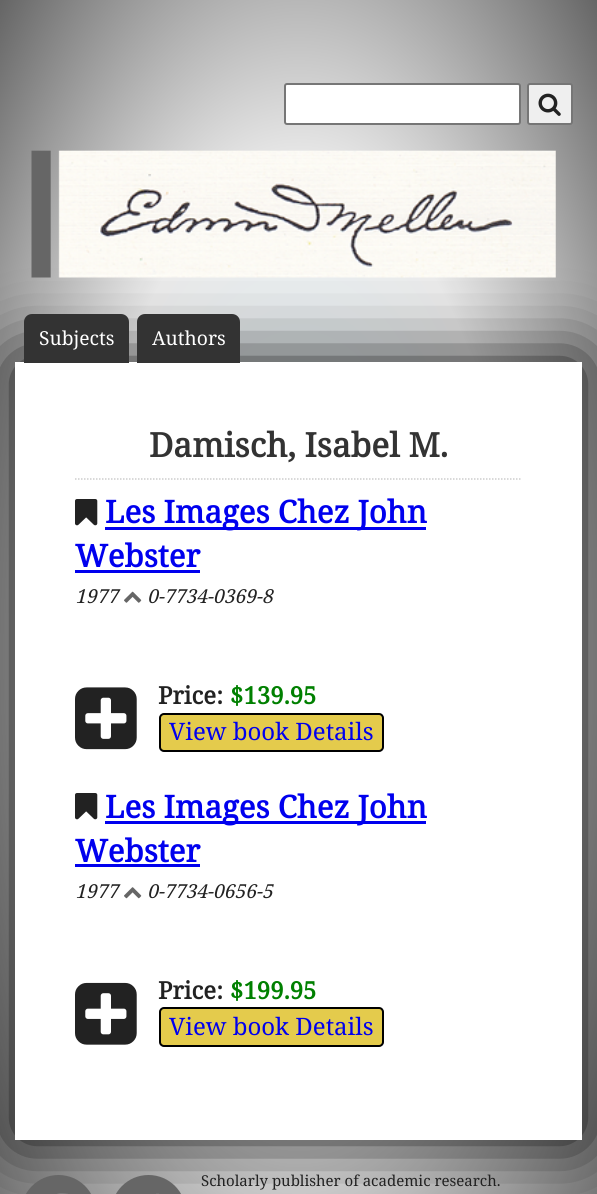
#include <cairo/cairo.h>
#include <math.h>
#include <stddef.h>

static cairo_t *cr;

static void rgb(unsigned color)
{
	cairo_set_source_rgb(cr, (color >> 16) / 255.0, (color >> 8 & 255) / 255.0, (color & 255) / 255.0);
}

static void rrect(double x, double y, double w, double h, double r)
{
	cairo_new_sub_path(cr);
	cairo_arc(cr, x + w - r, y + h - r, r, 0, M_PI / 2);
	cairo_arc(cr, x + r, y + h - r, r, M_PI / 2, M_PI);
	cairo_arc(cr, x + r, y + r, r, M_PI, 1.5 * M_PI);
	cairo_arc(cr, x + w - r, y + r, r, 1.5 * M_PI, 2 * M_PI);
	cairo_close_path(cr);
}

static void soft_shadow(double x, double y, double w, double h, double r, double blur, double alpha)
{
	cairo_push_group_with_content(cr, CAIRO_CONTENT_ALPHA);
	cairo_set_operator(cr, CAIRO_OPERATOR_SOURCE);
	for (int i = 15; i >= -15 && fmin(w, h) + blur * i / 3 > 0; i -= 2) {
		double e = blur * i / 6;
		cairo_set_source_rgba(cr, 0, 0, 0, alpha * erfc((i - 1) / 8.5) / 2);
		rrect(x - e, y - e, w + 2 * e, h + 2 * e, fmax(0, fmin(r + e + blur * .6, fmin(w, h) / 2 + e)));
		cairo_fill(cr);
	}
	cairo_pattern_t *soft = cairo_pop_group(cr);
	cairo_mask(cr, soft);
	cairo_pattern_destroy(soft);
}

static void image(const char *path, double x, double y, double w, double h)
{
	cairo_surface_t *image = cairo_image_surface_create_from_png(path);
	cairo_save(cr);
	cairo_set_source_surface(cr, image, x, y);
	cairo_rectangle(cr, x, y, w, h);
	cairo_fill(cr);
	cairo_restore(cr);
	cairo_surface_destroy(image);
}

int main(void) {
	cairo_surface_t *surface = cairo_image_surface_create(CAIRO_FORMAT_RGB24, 597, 1194);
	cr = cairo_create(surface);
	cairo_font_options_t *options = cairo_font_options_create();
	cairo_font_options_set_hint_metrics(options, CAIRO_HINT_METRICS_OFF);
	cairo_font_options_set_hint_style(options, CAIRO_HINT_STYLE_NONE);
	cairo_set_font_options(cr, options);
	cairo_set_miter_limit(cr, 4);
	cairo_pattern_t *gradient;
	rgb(0xffffff);
	cairo_paint(cr);
	gradient = cairo_pattern_create_radial(0, 0, 0, 0, 0, 1);
	cairo_pattern_set_matrix(gradient, &(cairo_matrix_t){1.0 / 422, 0, 0, 1.0 / 929, -1.0 * 299 / 422, -1.0 * 657 / 929});
	cairo_pattern_add_color_stop_rgba(gradient, 0, 0.894, 0.961, 0.988, 1);
	cairo_pattern_add_color_stop_rgba(gradient, 0.52, 0.929, 0.929, 0.929, 1);
	cairo_pattern_add_color_stop_rgba(gradient, 1, 0.4, 0.4, 0.4, 1);
	cairo_set_source(cr, gradient);
	cairo_pattern_destroy(gradient);
	cairo_rectangle(cr, 0, 0, 597, 1194);
	cairo_fill(cr);
	rgb(0xffffff);
	rrect(285, 84, 235, 40, 2);
	cairo_fill_preserve(cr);
	rgb(0x767676);
	cairo_stroke(cr);
	rgb(0xefefef);
	rrect(528, 84, 44, 40, 2);
	cairo_fill_preserve(cr);
	rgb(0x767676);
	cairo_stroke(cr);
	image("img/1.png", 538, 93, 23, 23);
	rgb(0x000000);
	soft_shadow(15, 362, 567, 778, 0, 37.5, 1);
	image("img/2.png", 31, 150, 525, 128);
	rgb(0xffffff);
	cairo_rectangle(cr, 15, 362, 567, 778);
	cairo_fill(cr);
	rgb(0x333333);
	cairo_new_path(cr);
	cairo_move_to(cr, 32, 314);
	cairo_line_to(cr, 121, 314);
	cairo_curve_to(cr, 125.5, 314, 129, 317.5, 129, 322);
	cairo_line_to(cr, 129, 363);
	cairo_line_to(cr, 24, 363);
	cairo_line_to(cr, 24, 322);
	cairo_curve_to(cr, 24, 317.5, 27.5, 314, 32, 314);
	cairo_close_path(cr);
	cairo_fill(cr);
	cairo_new_path(cr);
	cairo_move_to(cr, 145, 314);
	cairo_line_to(cr, 232, 314);
	cairo_curve_to(cr, 236.5, 314, 240, 317.5, 240, 322);
	cairo_line_to(cr, 240, 363);
	cairo_line_to(cr, 137, 363);
	cairo_line_to(cr, 137, 322);
	cairo_curve_to(cr, 137, 317.5, 140.5, 314, 145, 314);
	cairo_close_path(cr);
	cairo_fill(cr);
	cairo_new_path(cr);
	cairo_move_to(cr, 75, 479);
	cairo_line_to(cr, 522, 479);
	rgb(0xcccccc);
	cairo_set_line_width(cr, 1.5);
	cairo_set_dash(cr, (double[]){1.5, 1.5}, 2, 0);
	cairo_stroke(cr);
	image("img/3.png", 75, 499, 23, 27);
	rgb(0x0000ee);
	cairo_rectangle(cr, 105, 527, 321, 3);
	cairo_fill(cr);
	cairo_rectangle(cr, 75, 570, 125, 3);
	cairo_fill(cr);
	image("img/4.png", 124, 591, 18, 12);
	image("img/5.png", 75, 687, 62, 63);
	rgb(0xe4cb4c);
	rrect(160, 714, 223, 37, 4);
	cairo_fill_preserve(cr);
	rgb(0x000000);
	cairo_set_line_width(cr, 2);
	cairo_set_dash(cr, NULL, 0, 0);
	cairo_stroke(cr);
	image("img/3.png", 75, 793, 23, 27);
	rgb(0x0000ee);
	cairo_rectangle(cr, 105, 821, 321, 3);
	cairo_fill(cr);
	cairo_rectangle(cr, 75, 864, 125, 3);
	cairo_fill(cr);
	image("img/6.png", 124, 887, 18, 12);
	image("img/7.png", 75, 982, 62, 63);
	rgb(0xe4cb4c);
	rrect(160, 1008, 223, 38, 4);
	cairo_fill_preserve(cr);
	rgb(0x000000);
	cairo_stroke(cr);
	rgb(0x666666);
	rrect(21, 1175, 75, 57, 37.5);
	cairo_fill(cr);
	image("img/8.png", 57, 1193, 11, 1);
	rrect(111, 1175, 75, 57, 37.5);
	cairo_fill(cr);
	rgb(0x6e6e6e);
	cairo_rectangle(cr, 156, 1193, 3, 1);
	cairo_fill(cr);
	cairo_select_font_face(cr, "Noto Serif", CAIRO_FONT_SLANT_NORMAL, CAIRO_FONT_WEIGHT_NORMAL);
	cairo_set_font_size(cr, 19.25);
	rgb(0xffffff);
	cairo_move_to(cr, 39, 345);
	cairo_show_text(cr, "Subjects");
	cairo_move_to(cr, 152, 345);
	cairo_show_text(cr, "Authors");
	cairo_select_font_face(cr, "Noto Serif", CAIRO_FONT_SLANT_NORMAL, CAIRO_FONT_WEIGHT_BOLD);
	cairo_set_font_size(cr, 33.5);
	rgb(0x333333);
	cairo_move_to(cr, 149, 457);
	cairo_show_text(cr, "Damisch, Isabel M.");
	cairo_set_font_size(cr, 31.25);
	rgb(0x0000ee);
	cairo_move_to(cr, 105, 523);
	cairo_show_text(cr, "Les Images Chez John");
	cairo_move_to(cr, 75, 567);
	cairo_show_text(cr, "Webster");
	cairo_select_font_face(cr, "Noto Serif", CAIRO_FONT_SLANT_ITALIC, CAIRO_FONT_WEIGHT_NORMAL);
	cairo_set_font_size(cr, 19.25);
	rgb(0x222222);
	cairo_move_to(cr, 75, 603);
	cairo_show_text(cr, "1977");
	cairo_move_to(cr, 147, 603);
	cairo_show_text(cr, "0-7734-0369-8");
	cairo_select_font_face(cr, "Noto Serif", CAIRO_FONT_SLANT_NORMAL, CAIRO_FONT_WEIGHT_BOLD);
	cairo_set_font_size(cr, 24);
	cairo_move_to(cr, 158, 704);
	cairo_show_text(cr, "Price:");
	rgb(0x008000);
	cairo_move_to(cr, 230, 704);
	cairo_show_text(cr, "$139.95");
	cairo_select_font_face(cr, "Noto Serif", CAIRO_FONT_SLANT_NORMAL, CAIRO_FONT_WEIGHT_NORMAL);
	rgb(0x0000ee);
	cairo_move_to(cr, 169, 740);
	cairo_show_text(cr, "View book Details");
	cairo_select_font_face(cr, "Noto Serif", CAIRO_FONT_SLANT_NORMAL, CAIRO_FONT_WEIGHT_BOLD);
	cairo_set_font_size(cr, 31.25);
	cairo_move_to(cr, 105, 818);
	cairo_show_text(cr, "Les Images Chez John");
	cairo_move_to(cr, 75, 862);
	cairo_show_text(cr, "Webster");
	cairo_select_font_face(cr, "Noto Serif", CAIRO_FONT_SLANT_ITALIC, CAIRO_FONT_WEIGHT_NORMAL);
	cairo_set_font_size(cr, 19.25);
	rgb(0x222222);
	cairo_move_to(cr, 75, 898);
	cairo_show_text(cr, "1977");
	cairo_move_to(cr, 147, 898);
	cairo_show_text(cr, "0-7734-0656-5");
	cairo_select_font_face(cr, "Noto Serif", CAIRO_FONT_SLANT_NORMAL, CAIRO_FONT_WEIGHT_BOLD);
	cairo_set_font_size(cr, 24);
	cairo_move_to(cr, 158, 999);
	cairo_show_text(cr, "Price:");
	rgb(0x008000);
	cairo_move_to(cr, 230, 999);
	cairo_show_text(cr, "$199.95");
	cairo_select_font_face(cr, "Noto Serif", CAIRO_FONT_SLANT_NORMAL, CAIRO_FONT_WEIGHT_NORMAL);
	rgb(0x0000ee);
	cairo_move_to(cr, 169, 1035);
	cairo_show_text(cr, "View book Details");
	cairo_set_font_size(cr, 15);
	rgb(0x222222);
	cairo_move_to(cr, 201, 1186);
	cairo_show_text(cr, "Scholarly publisher of academic research.");
	cairo_surface_write_to_png(surface, "page.png");
	cairo_font_options_destroy(options);
	cairo_destroy(cr);
	cairo_surface_destroy(surface);
	return 0;
}
